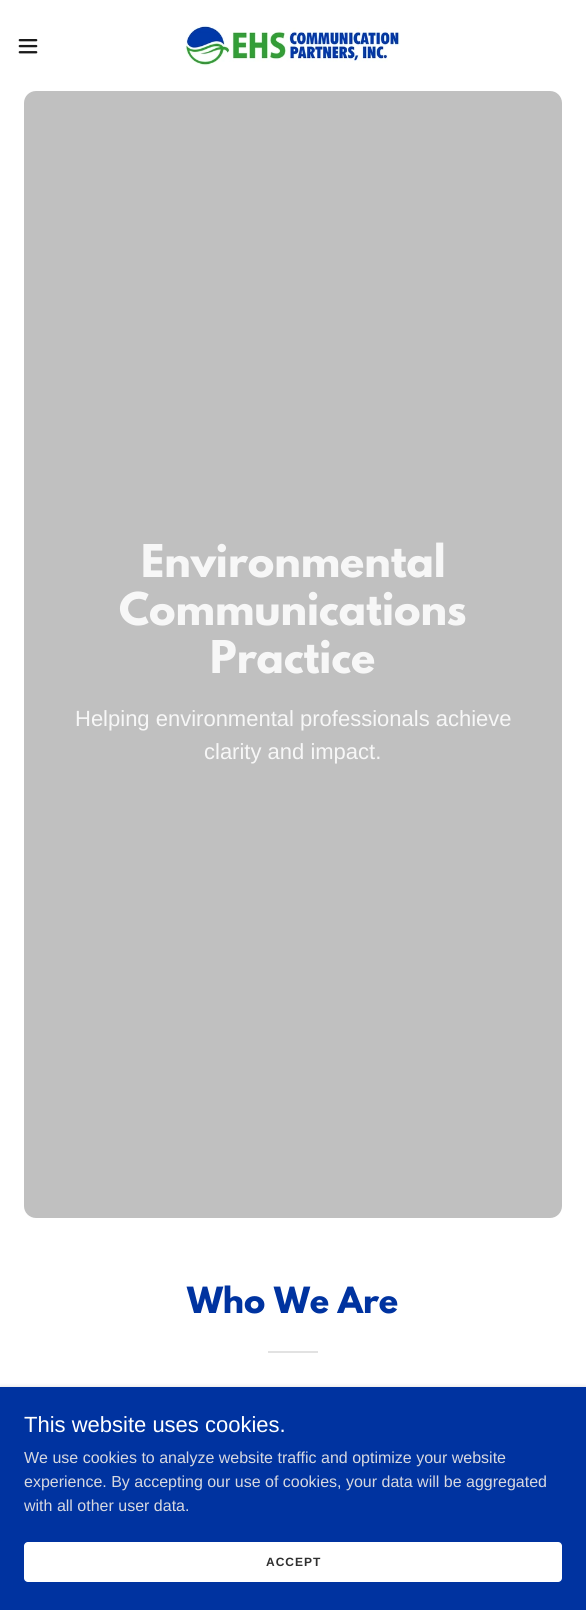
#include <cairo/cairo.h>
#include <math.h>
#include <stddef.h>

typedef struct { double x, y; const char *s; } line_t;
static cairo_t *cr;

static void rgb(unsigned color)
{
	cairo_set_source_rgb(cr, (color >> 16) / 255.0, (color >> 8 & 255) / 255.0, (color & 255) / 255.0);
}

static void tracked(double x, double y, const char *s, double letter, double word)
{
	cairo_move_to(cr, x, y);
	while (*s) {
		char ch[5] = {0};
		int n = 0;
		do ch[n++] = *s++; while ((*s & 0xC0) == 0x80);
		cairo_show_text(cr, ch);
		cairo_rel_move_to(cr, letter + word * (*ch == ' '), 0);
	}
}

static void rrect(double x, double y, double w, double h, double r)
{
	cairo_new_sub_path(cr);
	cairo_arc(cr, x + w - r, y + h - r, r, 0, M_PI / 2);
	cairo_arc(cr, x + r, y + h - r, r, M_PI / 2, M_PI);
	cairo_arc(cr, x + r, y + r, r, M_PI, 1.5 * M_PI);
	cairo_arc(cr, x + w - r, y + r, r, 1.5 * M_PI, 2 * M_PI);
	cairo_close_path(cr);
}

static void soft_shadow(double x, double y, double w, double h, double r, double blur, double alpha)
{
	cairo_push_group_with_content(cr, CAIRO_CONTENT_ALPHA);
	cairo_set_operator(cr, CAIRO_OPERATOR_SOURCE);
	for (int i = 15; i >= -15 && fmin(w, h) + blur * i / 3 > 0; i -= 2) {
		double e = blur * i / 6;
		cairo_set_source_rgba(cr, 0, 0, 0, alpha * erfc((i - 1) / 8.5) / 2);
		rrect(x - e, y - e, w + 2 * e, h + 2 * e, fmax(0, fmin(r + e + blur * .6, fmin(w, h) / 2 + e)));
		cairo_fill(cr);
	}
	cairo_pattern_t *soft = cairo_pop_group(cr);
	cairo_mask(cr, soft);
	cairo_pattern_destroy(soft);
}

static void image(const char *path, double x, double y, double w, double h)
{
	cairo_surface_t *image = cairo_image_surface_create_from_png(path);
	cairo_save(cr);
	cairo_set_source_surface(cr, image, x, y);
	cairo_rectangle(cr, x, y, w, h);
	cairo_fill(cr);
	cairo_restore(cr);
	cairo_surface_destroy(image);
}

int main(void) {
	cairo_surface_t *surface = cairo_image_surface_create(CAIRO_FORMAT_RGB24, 586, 1610);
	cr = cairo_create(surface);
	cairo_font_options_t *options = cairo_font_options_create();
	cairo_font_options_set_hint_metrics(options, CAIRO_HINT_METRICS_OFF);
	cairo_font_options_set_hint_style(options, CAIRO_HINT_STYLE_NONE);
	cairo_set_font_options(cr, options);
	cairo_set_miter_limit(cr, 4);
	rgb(0xffffff);
	cairo_paint(cr);
	image("img/1.png", 18, 39, 20, 15);
	image("img/2.png", 185, 25, 215, 41);
	rgb(0xc0c0c0);
	rrect(24, 91, 538, 1127, 12);
	cairo_fill(cr);
	rgb(0xe2e2e2);
	cairo_rectangle(cr, 268, 1351, 50, 2);
	cairo_fill(cr);
	rgb(0x000000);
	soft_shadow(0, 1389, 586, 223, 0, 3, 0.3);
	rgb(0x0033a0);
	cairo_rectangle(cr, 0, 1387, 586, 223);
	cairo_fill(cr);
	rgb(0xffffff);
	rrect(24, 1542, 538, 40, 4);
	cairo_fill(cr);
	cairo_select_font_face(cr, "League Spartan", CAIRO_FONT_SLANT_NORMAL, CAIRO_FONT_WEIGHT_BOLD);
	cairo_set_font_size(cr, 40);
	rgb(0xf7f7f7);
	{
		static const line_t items[] = {
			{141, 577, "Environmental"},
			{119, 625, "Communications"},
			{210, 673, "Practice"},
		};
		for (size_t i = 0; i < sizeof items / sizeof *items; i++) {
			cairo_move_to(cr, items[i].x, items[i].y);
			cairo_show_text(cr, items[i].s);
		}
	}
	cairo_select_font_face(cr, "Liberation Sans", CAIRO_FONT_SLANT_NORMAL, CAIRO_FONT_WEIGHT_NORMAL);
	cairo_set_font_size(cr, 22);
	cairo_move_to(cr, 75, 726);
	cairo_show_text(cr, "Helping environmental professionals achieve");
	cairo_move_to(cr, 204, 759);
	cairo_show_text(cr, "clarity and impact.");
	cairo_select_font_face(cr, "League Spartan", CAIRO_FONT_SLANT_NORMAL, CAIRO_FONT_WEIGHT_BOLD);
	cairo_set_font_size(cr, 32);
	rgb(0x0033a0);
	cairo_move_to(cr, 187, 1313);
	cairo_show_text(cr, "Who We Are");
	cairo_select_font_face(cr, "Liberation Sans", CAIRO_FONT_SLANT_NORMAL, CAIRO_FONT_WEIGHT_NORMAL);
	cairo_set_font_size(cr, 22);
	rgb(0xffffff);
	cairo_move_to(cr, 24, 1432);
	cairo_show_text(cr, "This website uses cookies.");
	cairo_set_font_size(cr, 16);
	rgb(0xd7d8e0);
	{
		static const line_t items[] = {
			{24, 1463, "We use cookies to analyze website traffic and optimize your website"},
			{24, 1487, "experience. By accepting our use of cookies, your data will be aggregated"},
			{24, 1511, "with all other user data."},
		};
		for (size_t i = 0; i < sizeof items / sizeof *items; i++) {
			cairo_move_to(cr, items[i].x, items[i].y);
			cairo_show_text(cr, items[i].s);
		}
	}
	cairo_select_font_face(cr, "Liberation Sans", CAIRO_FONT_SLANT_NORMAL, CAIRO_FONT_WEIGHT_BOLD);
	cairo_set_font_size(cr, 12);
	rgb(0x303030);
	tracked(266, 1566, "ACCEPT", 1, 0);
	cairo_surface_write_to_png(surface, "page.png");
	cairo_font_options_destroy(options);
	cairo_destroy(cr);
	cairo_surface_destroy(surface);
	return 0;
}
